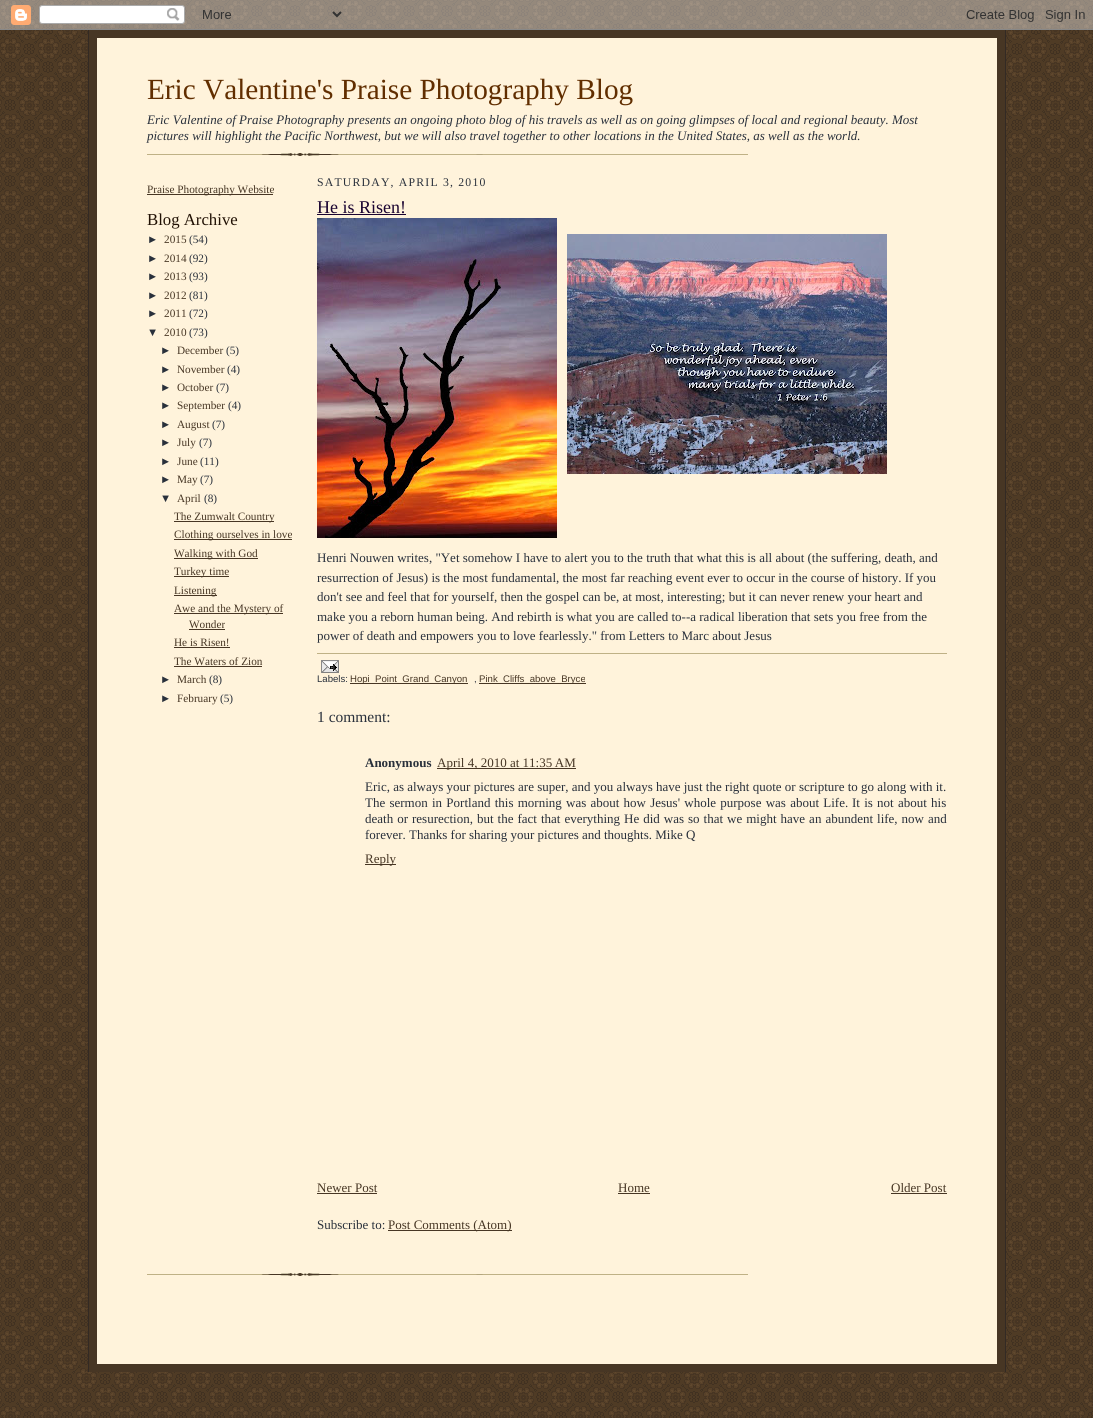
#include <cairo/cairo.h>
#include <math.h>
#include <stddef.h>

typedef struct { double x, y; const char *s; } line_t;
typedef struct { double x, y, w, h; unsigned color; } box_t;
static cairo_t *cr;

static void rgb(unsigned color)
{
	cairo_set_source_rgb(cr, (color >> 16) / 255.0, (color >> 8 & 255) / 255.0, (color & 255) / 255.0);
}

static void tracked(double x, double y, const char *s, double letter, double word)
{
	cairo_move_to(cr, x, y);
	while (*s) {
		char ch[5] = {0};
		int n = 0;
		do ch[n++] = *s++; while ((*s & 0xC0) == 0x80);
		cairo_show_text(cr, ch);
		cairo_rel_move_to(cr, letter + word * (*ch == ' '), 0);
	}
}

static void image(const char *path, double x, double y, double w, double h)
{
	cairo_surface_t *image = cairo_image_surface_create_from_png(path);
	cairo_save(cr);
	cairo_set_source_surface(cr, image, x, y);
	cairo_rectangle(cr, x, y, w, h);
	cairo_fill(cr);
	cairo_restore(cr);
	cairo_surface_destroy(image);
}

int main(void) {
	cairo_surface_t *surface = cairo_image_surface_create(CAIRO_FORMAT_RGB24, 1093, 1418);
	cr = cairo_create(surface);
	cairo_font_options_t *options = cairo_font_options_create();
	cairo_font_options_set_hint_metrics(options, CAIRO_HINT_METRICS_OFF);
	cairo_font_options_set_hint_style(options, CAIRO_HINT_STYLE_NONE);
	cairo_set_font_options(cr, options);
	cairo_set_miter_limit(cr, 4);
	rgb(0xffffff);
	cairo_paint(cr);
	image("img/1.png", 0, 0, 1093, 1418);
	image("img/2.png", 0, 0, 1093, 30);
	{
		static const box_t items[] = {
			{89, 30, 916, 1342, 0x473624},
			{1005, 30, 1, 1342, 0x332a24},
			{88, 30, 1, 1342, 0x332a24},
			{97, 38, 900, 1326, 0xfff3db},
		};
		for (size_t i = 0; i < sizeof items / sizeof *items; i++) {
			rgb(items[i].color);
			cairo_rectangle(cr, items[i].x, items[i].y, items[i].w, items[i].h);
			cairo_fill(cr);
		}
	}
	image("img/3.png", 147, 153, 601, 3);
	{
		static const box_t items[] = {
			{147, 194, 126, 1, 0x473624},
			{174, 521, 100, 1, 0x473624},
			{174, 539, 118, 1, 0x473624},
			{174, 558, 84, 1, 0x473624},
			{174, 576, 55, 1, 0x473624},
			{174, 595, 43, 1, 0x473624},
			{174, 613, 109, 1, 0x473624},
			{189, 629, 36, 1, 0x473624},
			{174, 647, 56, 1, 0x473624},
			{174, 666, 88, 1, 0x473624},
			{317, 214, 89, 1, 0x1b0431},
		};
		for (size_t i = 0; i < sizeof items / sizeof *items; i++) {
			rgb(items[i].color);
			cairo_rectangle(cr, items[i].x, items[i].y, items[i].w, items[i].h);
			cairo_fill(cr);
		}
	}
	image("img/4.png", 317, 218, 240, 320);
	image("img/5.png", 567, 234, 320, 240);
	rgb(0xbfb186);
	cairo_rectangle(cr, 317, 653, 630, 1);
	cairo_fill(cr);
	image("img/6.png", 321, 660, 18, 13);
	{
		static const box_t items[] = {
			{350, 683, 118, 1, 0x473624},
			{479, 683, 107, 1, 0x473624},
			{437, 768, 139, 1, 0x473624},
			{365, 864, 31, 1, 0x473624},
			{317, 1193, 60, 1, 0x473624},
			{618, 1193, 32, 1, 0x473624},
			{891, 1193, 56, 1, 0x473624},
			{388, 1230, 124, 1, 0x473624},
		};
		for (size_t i = 0; i < sizeof items / sizeof *items; i++) {
			rgb(items[i].color);
			cairo_rectangle(cr, items[i].x, items[i].y, items[i].w, items[i].h);
			cairo_fill(cr);
		}
	}
	image("img/3.png", 147, 1273, 601, 3);
	cairo_select_font_face(cr, "Liberation Serif", CAIRO_FONT_SLANT_NORMAL, CAIRO_FONT_WEIGHT_NORMAL);
	cairo_set_font_size(cr, 29.25);
	rgb(0x612e00);
	cairo_move_to(cr, 147, 99);
	cairo_show_text(cr, "Eric Valentine's Praise Photography Blog");
	cairo_select_font_face(cr, "Liberation Serif", CAIRO_FONT_SLANT_ITALIC, CAIRO_FONT_WEIGHT_NORMAL);
	cairo_set_font_size(cr, 13);
	rgb(0x29303b);
	cairo_move_to(cr, 147, 124);
	cairo_show_text(cr, "Eric Valentine of Praise Photography presents an ongoing photo blog of his travels as well as on going glimpses of local and regional beauty. Most");
	cairo_move_to(cr, 147, 140);
	cairo_show_text(cr, "pictures will highlight the Pacific Northwest, but we will also travel together to other locations in the United States, as well as the world.");
	cairo_select_font_face(cr, "Liberation Serif", CAIRO_FONT_SLANT_NORMAL, CAIRO_FONT_WEIGHT_NORMAL);
	cairo_set_font_size(cr, 11.25);
	rgb(0x473624);
	cairo_move_to(cr, 147, 193);
	cairo_show_text(cr, "Praise Photography Website");
	cairo_set_font_size(cr, 16.75);
	rgb(0x211104);
	cairo_move_to(cr, 147, 225);
	cairo_show_text(cr, "Blog Archive");
	cairo_select_font_face(cr, "Liberation Sans", CAIRO_FONT_SLANT_NORMAL, CAIRO_FONT_WEIGHT_NORMAL);
	cairo_set_font_size(cr, 11.25);
	rgb(0x29303b);
	cairo_move_to(cr, 147, 243);
	cairo_show_text(cr, "►");
	cairo_select_font_face(cr, "Liberation Serif", CAIRO_FONT_SLANT_NORMAL, CAIRO_FONT_WEIGHT_NORMAL);
	rgb(0x473624);
	cairo_move_to(cr, 164, 243);
	cairo_show_text(cr, "2015");
	rgb(0x29303b);
	cairo_move_to(cr, 189, 243);
	cairo_show_text(cr, "(54)");
	cairo_select_font_face(cr, "Liberation Sans", CAIRO_FONT_SLANT_NORMAL, CAIRO_FONT_WEIGHT_NORMAL);
	cairo_move_to(cr, 147, 262);
	cairo_show_text(cr, "►");
	cairo_select_font_face(cr, "Liberation Serif", CAIRO_FONT_SLANT_NORMAL, CAIRO_FONT_WEIGHT_NORMAL);
	rgb(0x473624);
	cairo_move_to(cr, 164, 262);
	cairo_show_text(cr, "2014");
	rgb(0x29303b);
	cairo_move_to(cr, 189, 262);
	cairo_show_text(cr, "(92)");
	cairo_select_font_face(cr, "Liberation Sans", CAIRO_FONT_SLANT_NORMAL, CAIRO_FONT_WEIGHT_NORMAL);
	cairo_move_to(cr, 147, 280);
	cairo_show_text(cr, "►");
	cairo_select_font_face(cr, "Liberation Serif", CAIRO_FONT_SLANT_NORMAL, CAIRO_FONT_WEIGHT_NORMAL);
	rgb(0x473624);
	cairo_move_to(cr, 164, 280);
	cairo_show_text(cr, "2013");
	rgb(0x29303b);
	cairo_move_to(cr, 189, 280);
	cairo_show_text(cr, "(93)");
	cairo_select_font_face(cr, "Liberation Sans", CAIRO_FONT_SLANT_NORMAL, CAIRO_FONT_WEIGHT_NORMAL);
	cairo_move_to(cr, 147, 299);
	cairo_show_text(cr, "►");
	cairo_select_font_face(cr, "Liberation Serif", CAIRO_FONT_SLANT_NORMAL, CAIRO_FONT_WEIGHT_NORMAL);
	rgb(0x473624);
	cairo_move_to(cr, 164, 299);
	cairo_show_text(cr, "2012");
	rgb(0x29303b);
	cairo_move_to(cr, 189, 299);
	cairo_show_text(cr, "(81)");
	cairo_select_font_face(cr, "Liberation Sans", CAIRO_FONT_SLANT_NORMAL, CAIRO_FONT_WEIGHT_NORMAL);
	cairo_move_to(cr, 147, 317);
	cairo_show_text(cr, "►");
	cairo_select_font_face(cr, "Liberation Serif", CAIRO_FONT_SLANT_NORMAL, CAIRO_FONT_WEIGHT_NORMAL);
	rgb(0x473624);
	cairo_move_to(cr, 164, 317);
	cairo_show_text(cr, "2011");
	rgb(0x29303b);
	cairo_move_to(cr, 189, 317);
	cairo_show_text(cr, "(72)");
	cairo_select_font_face(cr, "Liberation Sans", CAIRO_FONT_SLANT_NORMAL, CAIRO_FONT_WEIGHT_NORMAL);
	cairo_move_to(cr, 147, 336);
	cairo_show_text(cr, "▼");
	cairo_select_font_face(cr, "Liberation Serif", CAIRO_FONT_SLANT_NORMAL, CAIRO_FONT_WEIGHT_NORMAL);
	rgb(0x473624);
	cairo_move_to(cr, 164, 336);
	cairo_show_text(cr, "2010");
	rgb(0x29303b);
	cairo_move_to(cr, 189, 336);
	cairo_show_text(cr, "(73)");
	cairo_select_font_face(cr, "Liberation Sans", CAIRO_FONT_SLANT_NORMAL, CAIRO_FONT_WEIGHT_NORMAL);
	cairo_move_to(cr, 160, 354);
	cairo_show_text(cr, "►");
	cairo_select_font_face(cr, "Liberation Serif", CAIRO_FONT_SLANT_NORMAL, CAIRO_FONT_WEIGHT_NORMAL);
	rgb(0x473624);
	cairo_move_to(cr, 177, 354);
	cairo_show_text(cr, "December");
	rgb(0x29303b);
	cairo_move_to(cr, 226, 354);
	cairo_show_text(cr, "(5)");
	cairo_select_font_face(cr, "Liberation Sans", CAIRO_FONT_SLANT_NORMAL, CAIRO_FONT_WEIGHT_NORMAL);
	cairo_move_to(cr, 160, 373);
	cairo_show_text(cr, "►");
	cairo_select_font_face(cr, "Liberation Serif", CAIRO_FONT_SLANT_NORMAL, CAIRO_FONT_WEIGHT_NORMAL);
	rgb(0x473624);
	cairo_move_to(cr, 177, 373);
	cairo_show_text(cr, "November");
	rgb(0x29303b);
	cairo_move_to(cr, 227, 373);
	cairo_show_text(cr, "(4)");
	cairo_select_font_face(cr, "Liberation Sans", CAIRO_FONT_SLANT_NORMAL, CAIRO_FONT_WEIGHT_NORMAL);
	cairo_move_to(cr, 160, 391);
	cairo_show_text(cr, "►");
	cairo_select_font_face(cr, "Liberation Serif", CAIRO_FONT_SLANT_NORMAL, CAIRO_FONT_WEIGHT_NORMAL);
	rgb(0x473624);
	cairo_move_to(cr, 177, 391);
	cairo_show_text(cr, "October");
	rgb(0x29303b);
	cairo_move_to(cr, 216, 391);
	cairo_show_text(cr, "(7)");
	cairo_select_font_face(cr, "Liberation Sans", CAIRO_FONT_SLANT_NORMAL, CAIRO_FONT_WEIGHT_NORMAL);
	cairo_move_to(cr, 160, 409);
	cairo_show_text(cr, "►");
	cairo_select_font_face(cr, "Liberation Serif", CAIRO_FONT_SLANT_NORMAL, CAIRO_FONT_WEIGHT_NORMAL);
	rgb(0x473624);
	cairo_move_to(cr, 177, 409);
	cairo_show_text(cr, "September");
	rgb(0x29303b);
	cairo_move_to(cr, 228, 409);
	cairo_show_text(cr, "(4)");
	cairo_select_font_face(cr, "Liberation Sans", CAIRO_FONT_SLANT_NORMAL, CAIRO_FONT_WEIGHT_NORMAL);
	cairo_move_to(cr, 160, 428);
	cairo_show_text(cr, "►");
	cairo_select_font_face(cr, "Liberation Serif", CAIRO_FONT_SLANT_NORMAL, CAIRO_FONT_WEIGHT_NORMAL);
	rgb(0x473624);
	cairo_move_to(cr, 177, 428);
	cairo_show_text(cr, "August");
	rgb(0x29303b);
	cairo_move_to(cr, 212, 428);
	cairo_show_text(cr, "(7)");
	cairo_select_font_face(cr, "Liberation Sans", CAIRO_FONT_SLANT_NORMAL, CAIRO_FONT_WEIGHT_NORMAL);
	cairo_move_to(cr, 160, 446);
	cairo_show_text(cr, "►");
	cairo_select_font_face(cr, "Liberation Serif", CAIRO_FONT_SLANT_NORMAL, CAIRO_FONT_WEIGHT_NORMAL);
	rgb(0x473624);
	cairo_move_to(cr, 177, 446);
	cairo_show_text(cr, "July");
	rgb(0x29303b);
	cairo_move_to(cr, 199, 446);
	cairo_show_text(cr, "(7)");
	cairo_select_font_face(cr, "Liberation Sans", CAIRO_FONT_SLANT_NORMAL, CAIRO_FONT_WEIGHT_NORMAL);
	cairo_move_to(cr, 160, 465);
	cairo_show_text(cr, "►");
	cairo_select_font_face(cr, "Liberation Serif", CAIRO_FONT_SLANT_NORMAL, CAIRO_FONT_WEIGHT_NORMAL);
	rgb(0x473624);
	cairo_move_to(cr, 177, 465);
	cairo_show_text(cr, "June");
	rgb(0x29303b);
	cairo_move_to(cr, 200, 465);
	cairo_show_text(cr, "(11)");
	cairo_select_font_face(cr, "Liberation Sans", CAIRO_FONT_SLANT_NORMAL, CAIRO_FONT_WEIGHT_NORMAL);
	cairo_move_to(cr, 160, 483);
	cairo_show_text(cr, "►");
	cairo_select_font_face(cr, "Liberation Serif", CAIRO_FONT_SLANT_NORMAL, CAIRO_FONT_WEIGHT_NORMAL);
	rgb(0x473624);
	cairo_move_to(cr, 177, 483);
	cairo_show_text(cr, "May");
	rgb(0x29303b);
	cairo_move_to(cr, 200, 483);
	cairo_show_text(cr, "(7)");
	cairo_select_font_face(cr, "Liberation Sans", CAIRO_FONT_SLANT_NORMAL, CAIRO_FONT_WEIGHT_NORMAL);
	cairo_move_to(cr, 160, 502);
	cairo_show_text(cr, "▼");
	cairo_select_font_face(cr, "Liberation Serif", CAIRO_FONT_SLANT_NORMAL, CAIRO_FONT_WEIGHT_NORMAL);
	rgb(0x473624);
	cairo_move_to(cr, 177, 502);
	cairo_show_text(cr, "April");
	rgb(0x29303b);
	cairo_move_to(cr, 204, 502);
	cairo_show_text(cr, "(8)");
	rgb(0x473624);
	{
		static const line_t items[] = {
			{174, 520, "The Zumwalt Country"},
			{174, 538, "Clothing ourselves in love"},
			{174, 557, "Walking with God"},
			{174, 575, "Turkey time"},
			{174, 594, "Listening"},
			{174, 612, "Awe and the Mystery of"},
			{189, 628, "Wonder"},
			{174, 646, "He is Risen!"},
			{174, 665, "The Waters of Zion"},
		};
		for (size_t i = 0; i < sizeof items / sizeof *items; i++) {
			cairo_move_to(cr, items[i].x, items[i].y);
			cairo_show_text(cr, items[i].s);
		}
	}
	cairo_select_font_face(cr, "Liberation Sans", CAIRO_FONT_SLANT_NORMAL, CAIRO_FONT_WEIGHT_NORMAL);
	rgb(0x29303b);
	cairo_move_to(cr, 160, 683);
	cairo_show_text(cr, "►");
	cairo_select_font_face(cr, "Liberation Serif", CAIRO_FONT_SLANT_NORMAL, CAIRO_FONT_WEIGHT_NORMAL);
	rgb(0x473624);
	cairo_move_to(cr, 177, 683);
	cairo_show_text(cr, "March");
	rgb(0x29303b);
	cairo_move_to(cr, 209, 683);
	cairo_show_text(cr, "(8)");
	cairo_select_font_face(cr, "Liberation Sans", CAIRO_FONT_SLANT_NORMAL, CAIRO_FONT_WEIGHT_NORMAL);
	cairo_move_to(cr, 160, 702);
	cairo_show_text(cr, "►");
	cairo_select_font_face(cr, "Liberation Serif", CAIRO_FONT_SLANT_NORMAL, CAIRO_FONT_WEIGHT_NORMAL);
	rgb(0x473624);
	cairo_move_to(cr, 177, 702);
	cairo_show_text(cr, "February");
	rgb(0x29303b);
	cairo_move_to(cr, 220, 702);
	cairo_show_text(cr, "(5)");
	cairo_set_font_size(cr, 11.75);
	tracked(317, 186, "SATURDAY, APRIL 3, 2010", 1.2, 0);
	cairo_set_font_size(cr, 18);
	rgb(0x1b0431);
	cairo_move_to(cr, 317, 213);
	cairo_show_text(cr, "He is Risen!");
	cairo_set_font_size(cr, 13);
	rgb(0x29303b);
	{
		static const line_t items[] = {
			{317, 562, "Henri Nouwen writes, \"Yet somehow I have to alert you to the truth that what this is all about (the suffering, death, and"},
			{317, 582, "resurrection of Jesus) is the most fundamental, the most far reaching event ever to occur in the course of history. If you"},
			{317, 601, "don't see and feel that for yourself, then the gospel can be, at most, interesting; but it can never renew your heart and"},
			{317, 621, "make you a reborn human being. And rebirth is what you are called to--a radical liberation that sets you free from the"},
			{317, 640, "power of death and empowers you to love fearlessly.\" from Letters to Marc about Jesus"},
		};
		for (size_t i = 0; i < sizeof items / sizeof *items; i++) {
			cairo_move_to(cr, items[i].x, items[i].y);
			cairo_show_text(cr, items[i].s);
		}
	}
	cairo_select_font_face(cr, "Liberation Sans", CAIRO_FONT_SLANT_NORMAL, CAIRO_FONT_WEIGHT_NORMAL);
	cairo_set_font_size(cr, 9.6);
	cairo_move_to(cr, 317, 682);
	cairo_show_text(cr, "Labels:");
	rgb(0x473624);
	cairo_move_to(cr, 350, 682);
	cairo_show_text(cr, "Hopi_Point_Grand_Canyon");
	rgb(0x29303b);
	cairo_move_to(cr, 474, 682);
	cairo_show_text(cr, ",");
	rgb(0x473624);
	cairo_move_to(cr, 479, 682);
	cairo_show_text(cr, "Pink_Cliffs_above_Bryce");
	cairo_select_font_face(cr, "Liberation Serif", CAIRO_FONT_SLANT_NORMAL, CAIRO_FONT_WEIGHT_NORMAL);
	cairo_set_font_size(cr, 15.5);
	rgb(0x29303b);
	cairo_move_to(cr, 317, 722);
	cairo_show_text(cr, "1 comment:");
	cairo_select_font_face(cr, "Liberation Serif", CAIRO_FONT_SLANT_NORMAL, CAIRO_FONT_WEIGHT_BOLD);
	cairo_set_font_size(cr, 13);
	cairo_move_to(cr, 365, 767);
	cairo_show_text(cr, "Anonymous");
	cairo_select_font_face(cr, "Liberation Serif", CAIRO_FONT_SLANT_NORMAL, CAIRO_FONT_WEIGHT_NORMAL);
	rgb(0x473624);
	cairo_move_to(cr, 437, 767);
	cairo_show_text(cr, "April 4, 2010 at 11:35 AM");
	rgb(0x29303b);
	cairo_move_to(cr, 365, 791);
	cairo_show_text(cr, "Eric, as always your pictures are super, and you always have just the right quote or scripture to go along with it.");
	tracked(365, 807, "The sermon in Portland this morning was about how Jesus' whole purpose was about Life.", 0, 1);
	tracked(852, 807, "It is not about his", 0, 1);
	tracked(365, 823, "death or resurection, but the fact that everything He did was so that we might have an abundent life, now and", 0, 0.75);
	cairo_move_to(cr, 365, 839);
	cairo_show_text(cr, "forever. Thanks for sharing your pictures and thoughts. Mike Q");
	rgb(0x473624);
	{
		static const line_t items[] = {
			{365, 863, "Reply"},
			{317, 1192, "Newer Post"},
			{618, 1192, "Home"},
			{891, 1192, "Older Post"},
		};
		for (size_t i = 0; i < sizeof items / sizeof *items; i++) {
			cairo_move_to(cr, items[i].x, items[i].y);
			cairo_show_text(cr, items[i].s);
		}
	}
	rgb(0x29303b);
	cairo_move_to(cr, 317, 1229);
	cairo_show_text(cr, "Subscribe to:");
	rgb(0x473624);
	cairo_move_to(cr, 388, 1229);
	cairo_show_text(cr, "Post Comments (Atom)");
	cairo_surface_write_to_png(surface, "page.png");
	cairo_font_options_destroy(options);
	cairo_destroy(cr);
	cairo_surface_destroy(surface);
	return 0;
}
